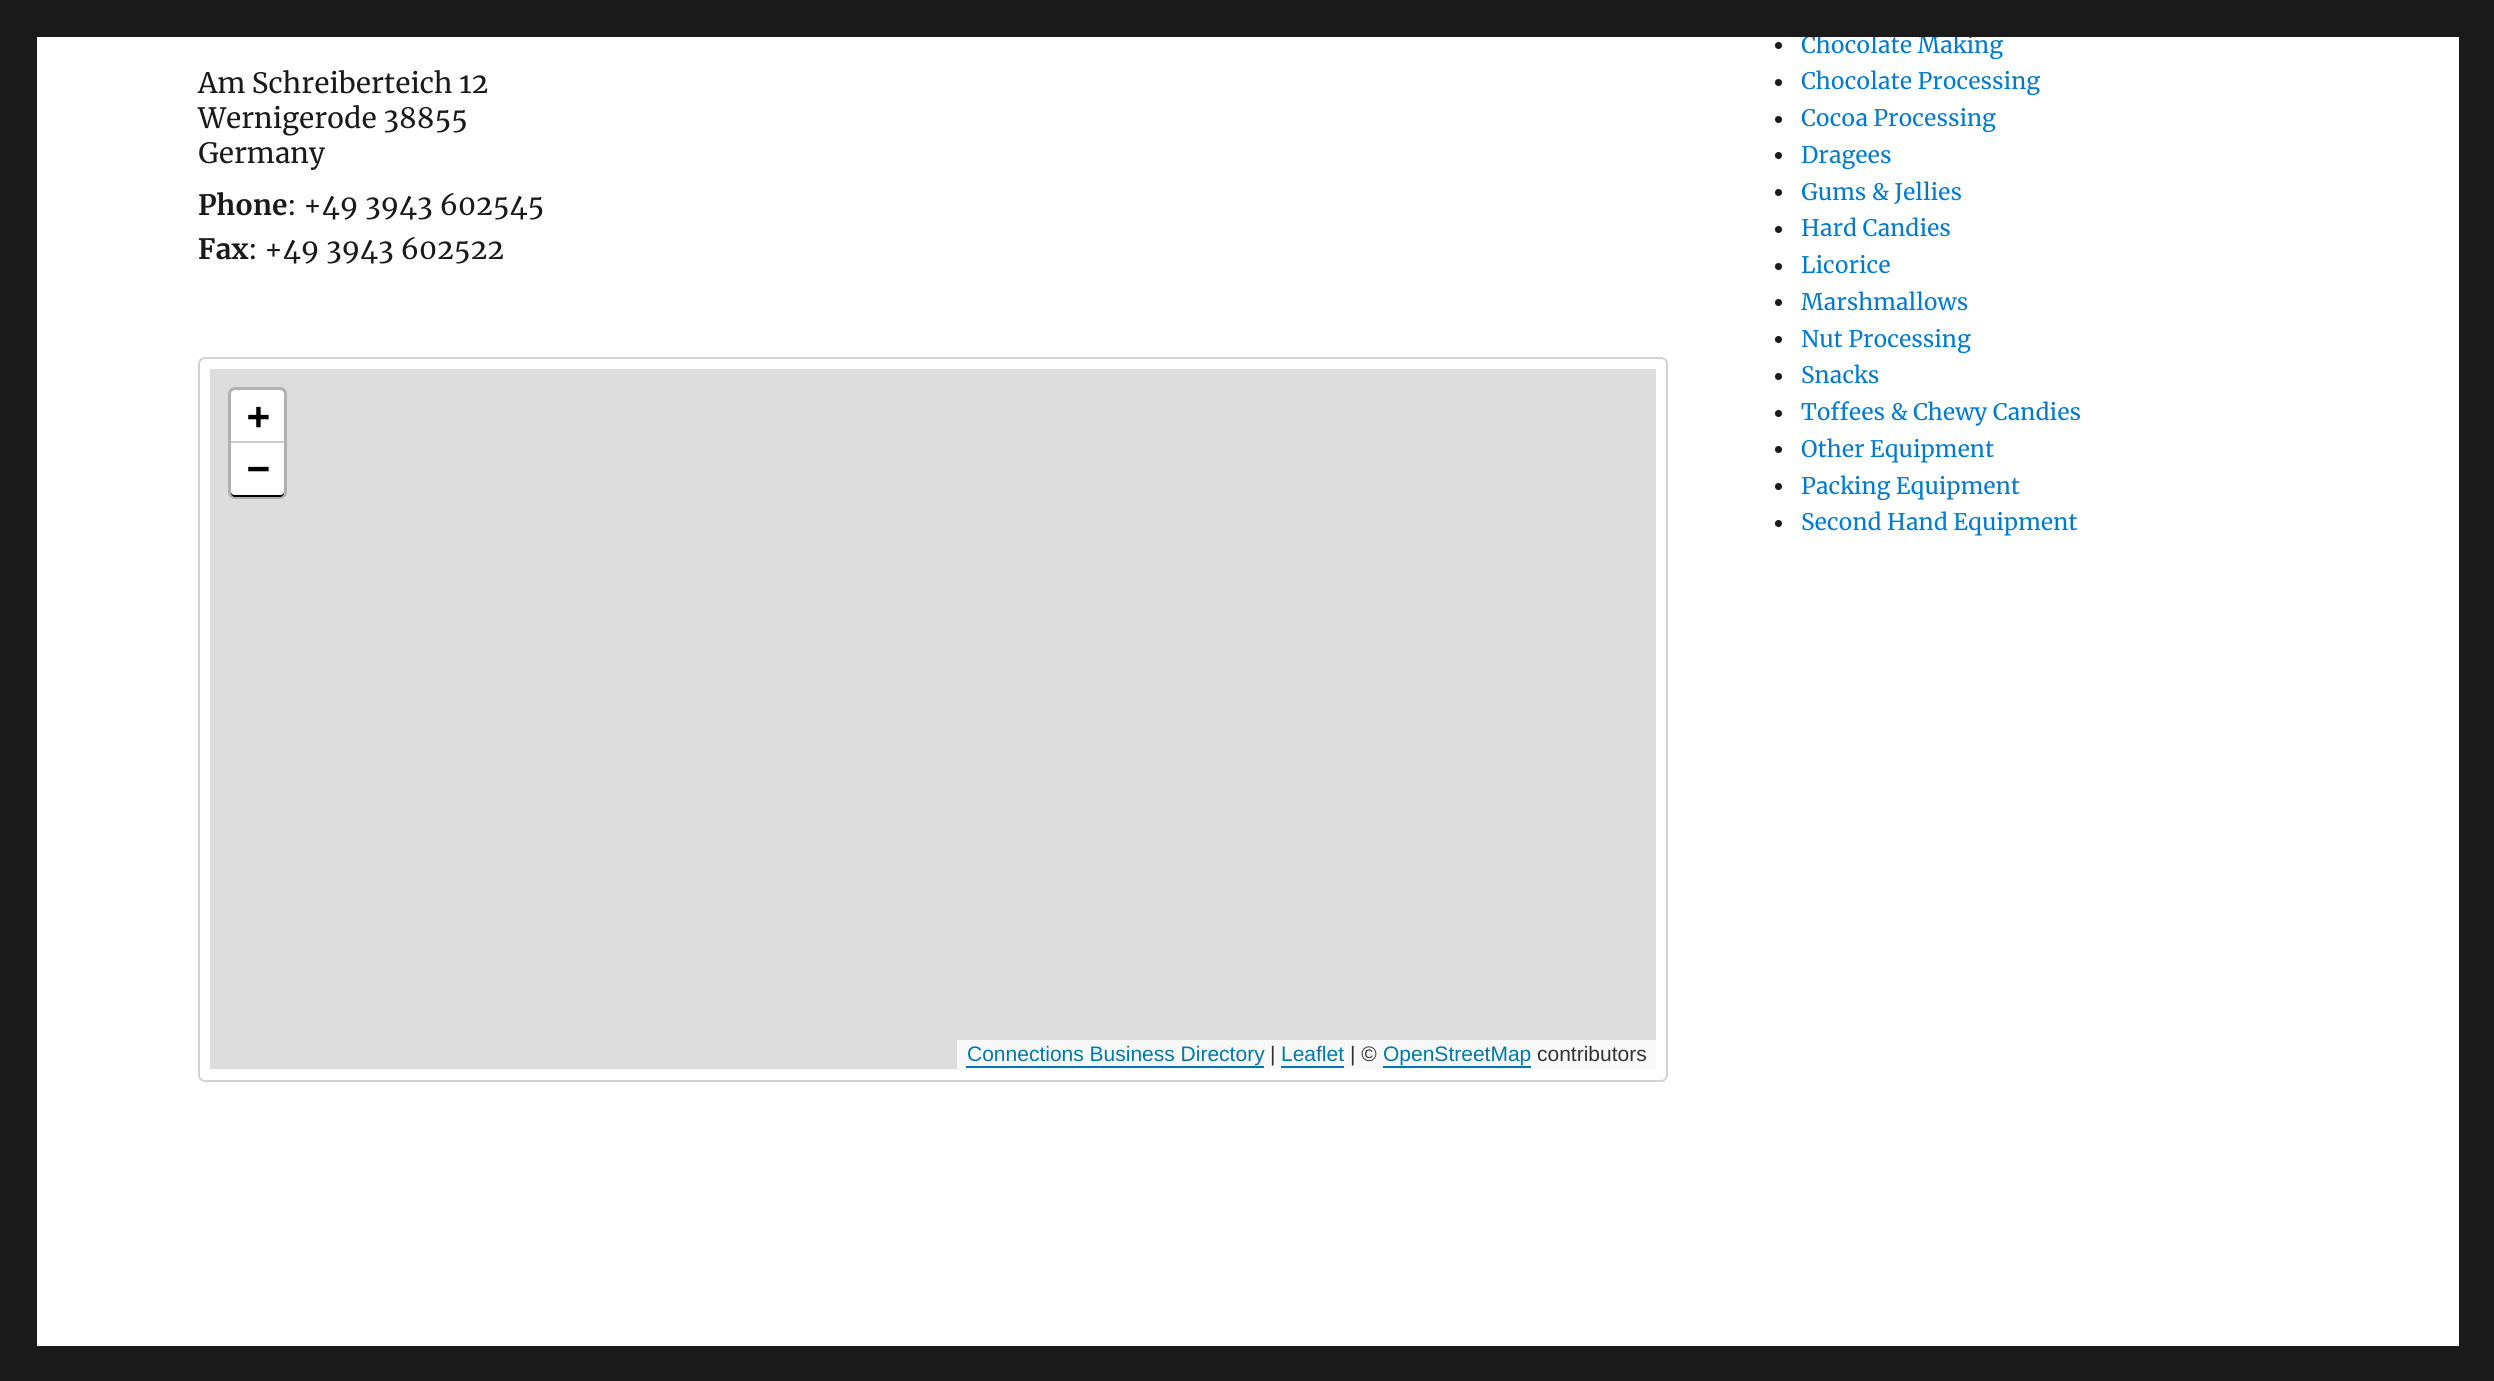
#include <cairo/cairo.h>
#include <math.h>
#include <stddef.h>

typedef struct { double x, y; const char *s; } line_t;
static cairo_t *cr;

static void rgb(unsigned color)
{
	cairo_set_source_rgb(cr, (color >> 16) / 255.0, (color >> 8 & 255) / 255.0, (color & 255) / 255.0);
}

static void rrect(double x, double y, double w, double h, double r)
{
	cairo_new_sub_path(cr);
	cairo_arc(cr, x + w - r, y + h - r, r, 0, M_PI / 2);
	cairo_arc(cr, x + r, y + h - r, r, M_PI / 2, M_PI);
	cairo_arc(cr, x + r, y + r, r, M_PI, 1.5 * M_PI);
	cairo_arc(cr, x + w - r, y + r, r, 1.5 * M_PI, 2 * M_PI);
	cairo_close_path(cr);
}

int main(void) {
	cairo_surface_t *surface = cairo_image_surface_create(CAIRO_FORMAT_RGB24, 2494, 1381);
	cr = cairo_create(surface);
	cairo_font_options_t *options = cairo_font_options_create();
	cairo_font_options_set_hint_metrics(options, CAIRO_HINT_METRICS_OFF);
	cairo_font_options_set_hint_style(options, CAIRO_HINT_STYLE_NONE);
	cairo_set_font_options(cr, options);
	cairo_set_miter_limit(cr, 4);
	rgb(0x1a1a1a);
	cairo_paint(cr);
	rgb(0xffffff);
	cairo_rectangle(cr, 37, 37, 2422, 1309);
	cairo_fill(cr);
	rrect(199, 358, 1468, 723, 6);
	rgb(0xd3d3d3);
	cairo_stroke(cr);
	rgb(0xdddddd);
	cairo_rectangle(cr, 210, 369, 1446, 700);
	cairo_fill(cr);
	rrect(230, 389, 55, 108, 5);
	rgb(0xb1b1b1);
	cairo_set_line_width(cr, 4);
	cairo_stroke(cr);
	rgb(0xffffff);
	cairo_new_path(cr);
	cairo_move_to(cr, 235, 390);
	cairo_line_to(cr, 280, 390);
	cairo_curve_to(cr, 282, 390, 284, 392, 284, 394);
	cairo_line_to(cr, 284, 443);
	cairo_line_to(cr, 231, 443);
	cairo_line_to(cr, 231, 394);
	cairo_curve_to(cr, 231, 392, 233, 390, 235, 390);
	cairo_close_path(cr);
	cairo_fill(cr);
	rgb(0xcccccc);
	cairo_rectangle(cr, 231, 441, 53, 2);
	cairo_fill(cr);
	rgb(0x000000);
	cairo_new_path(cr);
	cairo_move_to(cr, 231, 492);
	cairo_line_to(cr, 231, 493);
	cairo_curve_to(cr, 231, 495, 233, 497, 235, 497);
	cairo_line_to(cr, 280, 497);
	cairo_curve_to(cr, 282, 497, 284, 495, 284, 493);
	cairo_line_to(cr, 284, 445);
	cairo_line_to(cr, 284, 492);
	cairo_curve_to(cr, 284, 494, 282, 495, 280, 495);
	cairo_line_to(cr, 234, 495);
	cairo_curve_to(cr, 233, 495, 231, 494, 231, 492);
	cairo_close_path(cr);
	cairo_fill(cr);
	rgb(0xffffff);
	cairo_new_path(cr);
	cairo_move_to(cr, 231, 443);
	cairo_line_to(cr, 284, 443);
	cairo_line_to(cr, 284, 491);
	cairo_curve_to(cr, 284, 493, 282, 495, 280, 495);
	cairo_line_to(cr, 235, 495);
	cairo_curve_to(cr, 233, 495, 231, 493, 231, 491);
	cairo_close_path(cr);
	cairo_fill(cr);
	rgb(0xf8f8f8);
	cairo_rectangle(cr, 957, 1040, 699, 29);
	cairo_fill(cr);
	rgb(0x0078a8);
	cairo_new_path(cr);
	cairo_move_to(cr, 966, 1066);
	cairo_line_to(cr, 966, 1068);
	cairo_line_to(cr, 1264, 1068);
	cairo_line_to(cr, 1264, 1043);
	cairo_line_to(cr, 1264, 1066);
	cairo_close_path(cr);
	cairo_fill(cr);
	cairo_rectangle(cr, 1281, 1066, 63, 2);
	cairo_fill(cr);
	cairo_rectangle(cr, 1383, 1066, 148, 2);
	cairo_fill(cr);
	rgb(0x1a1a1a);
	cairo_arc(cr, 1778.5, 45.5, 3.5, 0, 2 * M_PI);
	cairo_fill(cr);
	cairo_arc(cr, 1778.5, 82.5, 3.5, 0, 2 * M_PI);
	cairo_fill(cr);
	cairo_arc(cr, 1778.5, 119.5, 3.5, 0, 2 * M_PI);
	cairo_fill(cr);
	cairo_arc(cr, 1778.5, 155.5, 3.5, 0, 2 * M_PI);
	cairo_fill(cr);
	cairo_arc(cr, 1778.5, 192.5, 3.5, 0, 2 * M_PI);
	cairo_fill(cr);
	cairo_arc(cr, 1778.5, 229.5, 3.5, 0, 2 * M_PI);
	cairo_fill(cr);
	cairo_arc(cr, 1778.5, 266.5, 3.5, 0, 2 * M_PI);
	cairo_fill(cr);
	cairo_arc(cr, 1778.5, 302.5, 3.5, 0, 2 * M_PI);
	cairo_fill(cr);
	cairo_arc(cr, 1778.5, 339.5, 3.5, 0, 2 * M_PI);
	cairo_fill(cr);
	cairo_arc(cr, 1778.5, 376.5, 3.5, 0, 2 * M_PI);
	cairo_fill(cr);
	cairo_arc(cr, 1778.5, 413.5, 3.5, 0, 2 * M_PI);
	cairo_fill(cr);
	cairo_arc(cr, 1778.5, 449.5, 3.5, 0, 2 * M_PI);
	cairo_fill(cr);
	cairo_arc(cr, 1778.5, 486.5, 3.5, 0, 2 * M_PI);
	cairo_fill(cr);
	cairo_arc(cr, 1778.5, 523.5, 3.5, 0, 2 * M_PI);
	cairo_fill(cr);
	cairo_select_font_face(cr, "Merriweather", CAIRO_FONT_SLANT_NORMAL, CAIRO_FONT_WEIGHT_NORMAL);
	cairo_set_font_size(cr, 28);
	{
		static const line_t items[] = {
			{198, 93, "Am Schreiberteich 12"},
			{198, 128, "Wernigerode 38855"},
			{198, 163, "Germany"},
		};
		for (size_t i = 0; i < sizeof items / sizeof *items; i++) {
			cairo_move_to(cr, items[i].x, items[i].y);
			cairo_show_text(cr, items[i].s);
		}
	}
	cairo_select_font_face(cr, "Merriweather", CAIRO_FONT_SLANT_NORMAL, CAIRO_FONT_WEIGHT_BOLD);
	cairo_move_to(cr, 198, 215);
	cairo_show_text(cr, "Phone");
	cairo_select_font_face(cr, "Merriweather", CAIRO_FONT_SLANT_NORMAL, CAIRO_FONT_WEIGHT_NORMAL);
	cairo_move_to(cr, 287, 215);
	cairo_show_text(cr, ": +49 3943 602545");
	cairo_select_font_face(cr, "Merriweather", CAIRO_FONT_SLANT_NORMAL, CAIRO_FONT_WEIGHT_BOLD);
	cairo_move_to(cr, 198, 259);
	cairo_show_text(cr, "Fax");
	cairo_select_font_face(cr, "Merriweather", CAIRO_FONT_SLANT_NORMAL, CAIRO_FONT_WEIGHT_NORMAL);
	cairo_move_to(cr, 248, 259);
	cairo_show_text(cr, ": +49 3943 602522");
	cairo_select_font_face(cr, "DejaVu Sans Mono", CAIRO_FONT_SLANT_NORMAL, CAIRO_FONT_WEIGHT_BOLD);
	cairo_set_font_size(cr, 38);
	rgb(0x000000);
	cairo_move_to(cr, 247, 429);
	cairo_show_text(cr, "+");
	cairo_move_to(cr, 247, 481);
	cairo_show_text(cr, "−");
	cairo_select_font_face(cr, "Liberation Sans", CAIRO_FONT_SLANT_NORMAL, CAIRO_FONT_WEIGHT_NORMAL);
	cairo_set_font_size(cr, 21);
	rgb(0x0078a8);
	cairo_move_to(cr, 967, 1061);
	cairo_show_text(cr, "Connections Business Directory");
	rgb(0x333333);
	cairo_move_to(cr, 1270, 1061);
	cairo_show_text(cr, "|");
	rgb(0x0078a8);
	cairo_move_to(cr, 1281, 1061);
	cairo_show_text(cr, "Leaflet");
	rgb(0x333333);
	cairo_move_to(cr, 1350, 1061);
	cairo_show_text(cr, "| ©");
	rgb(0x0078a8);
	cairo_move_to(cr, 1383, 1061);
	cairo_show_text(cr, "OpenStreetMap");
	rgb(0x333333);
	cairo_move_to(cr, 1537, 1061);
	cairo_show_text(cr, "contributors");
	cairo_select_font_face(cr, "Merriweather", CAIRO_FONT_SLANT_NORMAL, CAIRO_FONT_WEIGHT_NORMAL);
	cairo_set_font_size(cr, 22.75);
	rgb(0x007acc);
	{
		static const line_t items[] = {
			{1801, 53, "Chocolate Making"},
			{1801, 89, "Chocolate Processing"},
			{1801, 126, "Cocoa Processing"},
			{1801, 163, "Dragees"},
			{1801, 200, "Gums & Jellies"},
			{1801, 236, "Hard Candies"},
			{1801, 273, "Licorice"},
			{1801, 310, "Marshmallows"},
			{1801, 347, "Nut Processing"},
			{1801, 383, "Snacks"},
			{1801, 420, "Toffees & Chewy Candies"},
			{1801, 457, "Other Equipment"},
			{1801, 494, "Packing Equipment"},
			{1801, 530, "Second Hand Equipment"},
		};
		for (size_t i = 0; i < sizeof items / sizeof *items; i++) {
			cairo_move_to(cr, items[i].x, items[i].y);
			cairo_show_text(cr, items[i].s);
		}
	}
	rgb(0x1a1a1a);
	cairo_rectangle(cr, 1806, 34, 167, 3);
	cairo_fill(cr);
	cairo_surface_write_to_png(surface, "page.png");
	cairo_font_options_destroy(options);
	cairo_destroy(cr);
	cairo_surface_destroy(surface);
	return 0;
}
